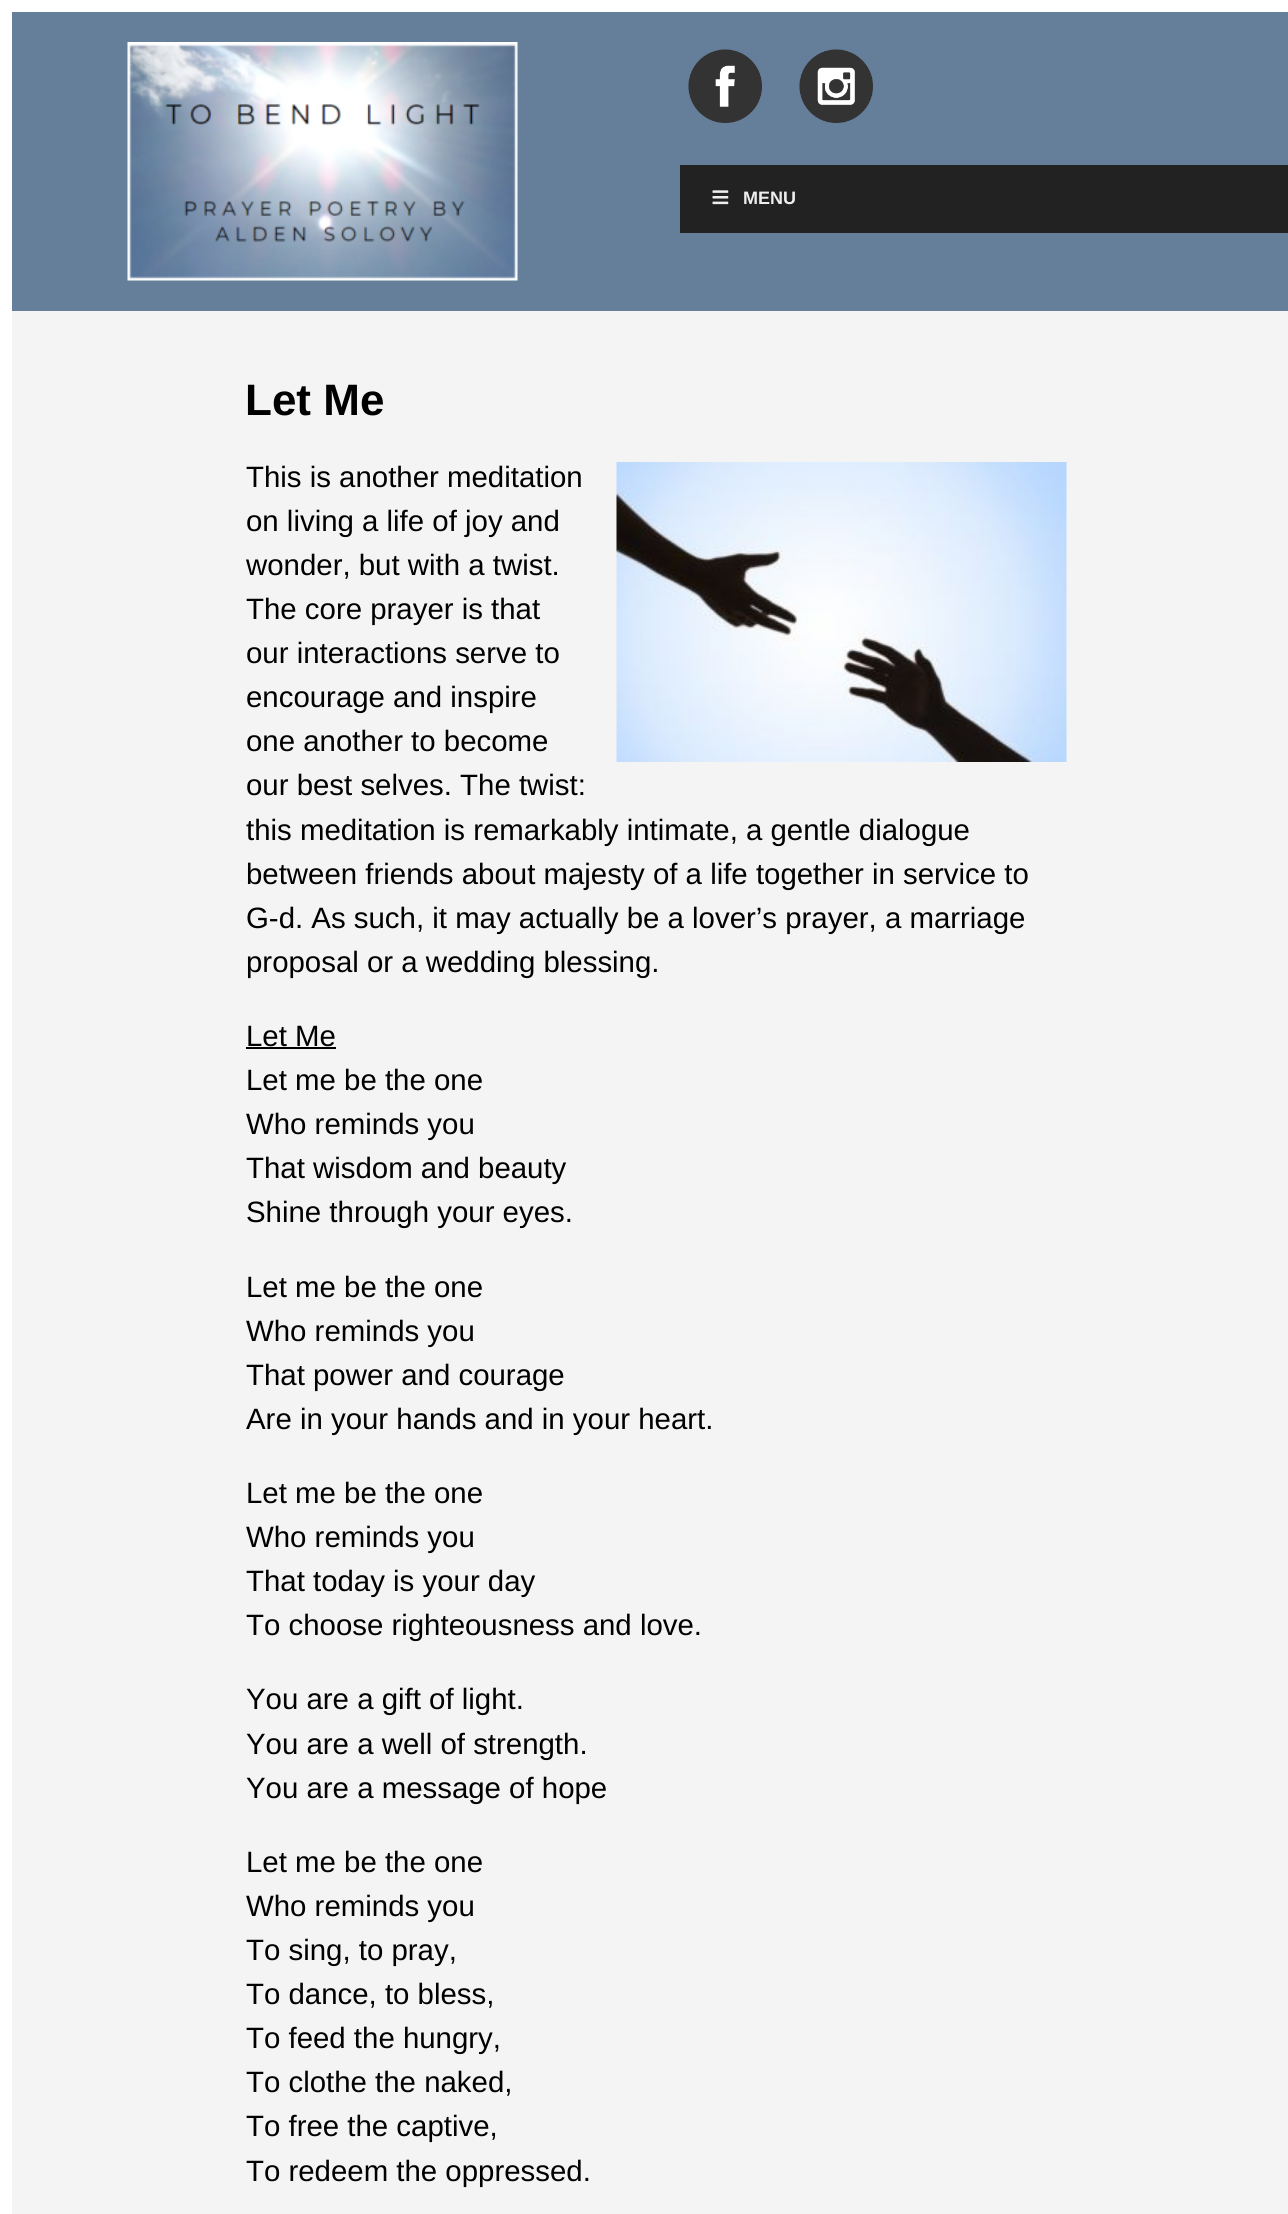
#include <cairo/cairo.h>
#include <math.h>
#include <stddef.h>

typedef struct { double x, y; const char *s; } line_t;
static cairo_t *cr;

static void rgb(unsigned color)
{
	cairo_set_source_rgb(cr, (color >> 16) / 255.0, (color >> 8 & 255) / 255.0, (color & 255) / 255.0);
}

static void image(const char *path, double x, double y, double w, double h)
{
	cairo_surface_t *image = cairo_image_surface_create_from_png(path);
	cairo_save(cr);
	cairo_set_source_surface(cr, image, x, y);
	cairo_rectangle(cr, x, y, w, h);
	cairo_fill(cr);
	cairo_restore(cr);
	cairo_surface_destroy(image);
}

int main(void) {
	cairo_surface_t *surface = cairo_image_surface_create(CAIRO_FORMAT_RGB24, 1288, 2214);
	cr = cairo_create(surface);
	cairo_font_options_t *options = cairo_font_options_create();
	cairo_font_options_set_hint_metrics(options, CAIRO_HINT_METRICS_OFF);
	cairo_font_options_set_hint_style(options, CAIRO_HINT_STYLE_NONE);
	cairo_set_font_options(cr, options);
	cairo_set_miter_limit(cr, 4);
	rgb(0xffffff);
	cairo_paint(cr);
	rgb(0x657f9b);
	cairo_rectangle(cr, 12, 12, 1276, 299);
	cairo_fill(cr);
	image("img/1.png", 127, 42, 391, 239);
	image("img/2.png", 688, 49, 74, 74);
	image("img/3.png", 799, 49, 74, 74);
	rgb(0x222222);
	cairo_rectangle(cr, 680, 165, 608, 68);
	cairo_fill(cr);
	image("img/4.png", 712, 190, 17, 15);
	rgb(0xf4f4f4);
	cairo_rectangle(cr, 12, 311, 1276, 1903);
	cairo_fill(cr);
	image("img/5.png", 616, 462, 451, 300);
	rgb(0x000000);
	cairo_rectangle(cr, 246, 1047, 90, 2);
	cairo_fill(cr);
	cairo_select_font_face(cr, "Liberation Sans", CAIRO_FONT_SLANT_NORMAL, CAIRO_FONT_WEIGHT_BOLD);
	cairo_set_font_size(cr, 18);
	rgb(0xeeeeee);
	cairo_move_to(cr, 743, 204);
	cairo_show_text(cr, "MENU");
	cairo_set_font_size(cr, 44);
	rgb(0x000000);
	cairo_move_to(cr, 245, 415);
	cairo_show_text(cr, "Let Me");
	cairo_select_font_face(cr, "Liberation Sans", CAIRO_FONT_SLANT_NORMAL, CAIRO_FONT_WEIGHT_NORMAL);
	cairo_set_font_size(cr, 29.4);
	{
		static const line_t items[] = {
			{246, 487, "This is another meditation"},
			{246, 531, "on living a life of joy and"},
			{246, 575, "wonder, but with a twist."},
			{246, 619, "The core prayer is that"},
			{246, 663, "our interactions serve to"},
			{246, 707, "encourage and inspire"},
			{246, 751, "one another to become"},
			{246, 795, "our best selves. The twist:"},
			{246, 840, "this meditation is remarkably intimate, a gentle dialogue"},
			{246, 884, "between friends about majesty of a life together in service to"},
			{246, 928, "G-d. As such, it may actually be a lover’s prayer, a marriage"},
			{246, 972, "proposal or a wedding blessing."},
			{246, 1046, "Let Me"},
			{246, 1090, "Let me be the one"},
			{246, 1134, "Who reminds you"},
			{246, 1178, "That wisdom and beauty"},
			{246, 1222, "Shine through your eyes."},
			{246, 1297, "Let me be the one"},
			{246, 1341, "Who reminds you"},
			{246, 1385, "That power and courage"},
			{246, 1429, "Are in your hands and in your heart."},
			{246, 1503, "Let me be the one"},
			{246, 1547, "Who reminds you"},
			{246, 1591, "That today is your day"},
			{246, 1635, "To choose righteousness and love."},
			{246, 1709, "You are a gift of light."},
			{246, 1754, "You are a well of strength."},
			{246, 1798, "You are a message of hope"},
			{246, 1872, "Let me be the one"},
			{246, 1916, "Who reminds you"},
			{246, 1960, "To sing, to pray,"},
			{246, 2004, "To dance, to bless,"},
			{246, 2048, "To feed the hungry,"},
			{246, 2092, "To clothe the naked,"},
			{246, 2136, "To free the captive,"},
			{246, 2181, "To redeem the oppressed."},
		};
		for (size_t i = 0; i < sizeof items / sizeof *items; i++) {
			cairo_move_to(cr, items[i].x, items[i].y);
			cairo_show_text(cr, items[i].s);
		}
	}
	cairo_surface_write_to_png(surface, "page.png");
	cairo_font_options_destroy(options);
	cairo_destroy(cr);
	cairo_surface_destroy(surface);
	return 0;
}
